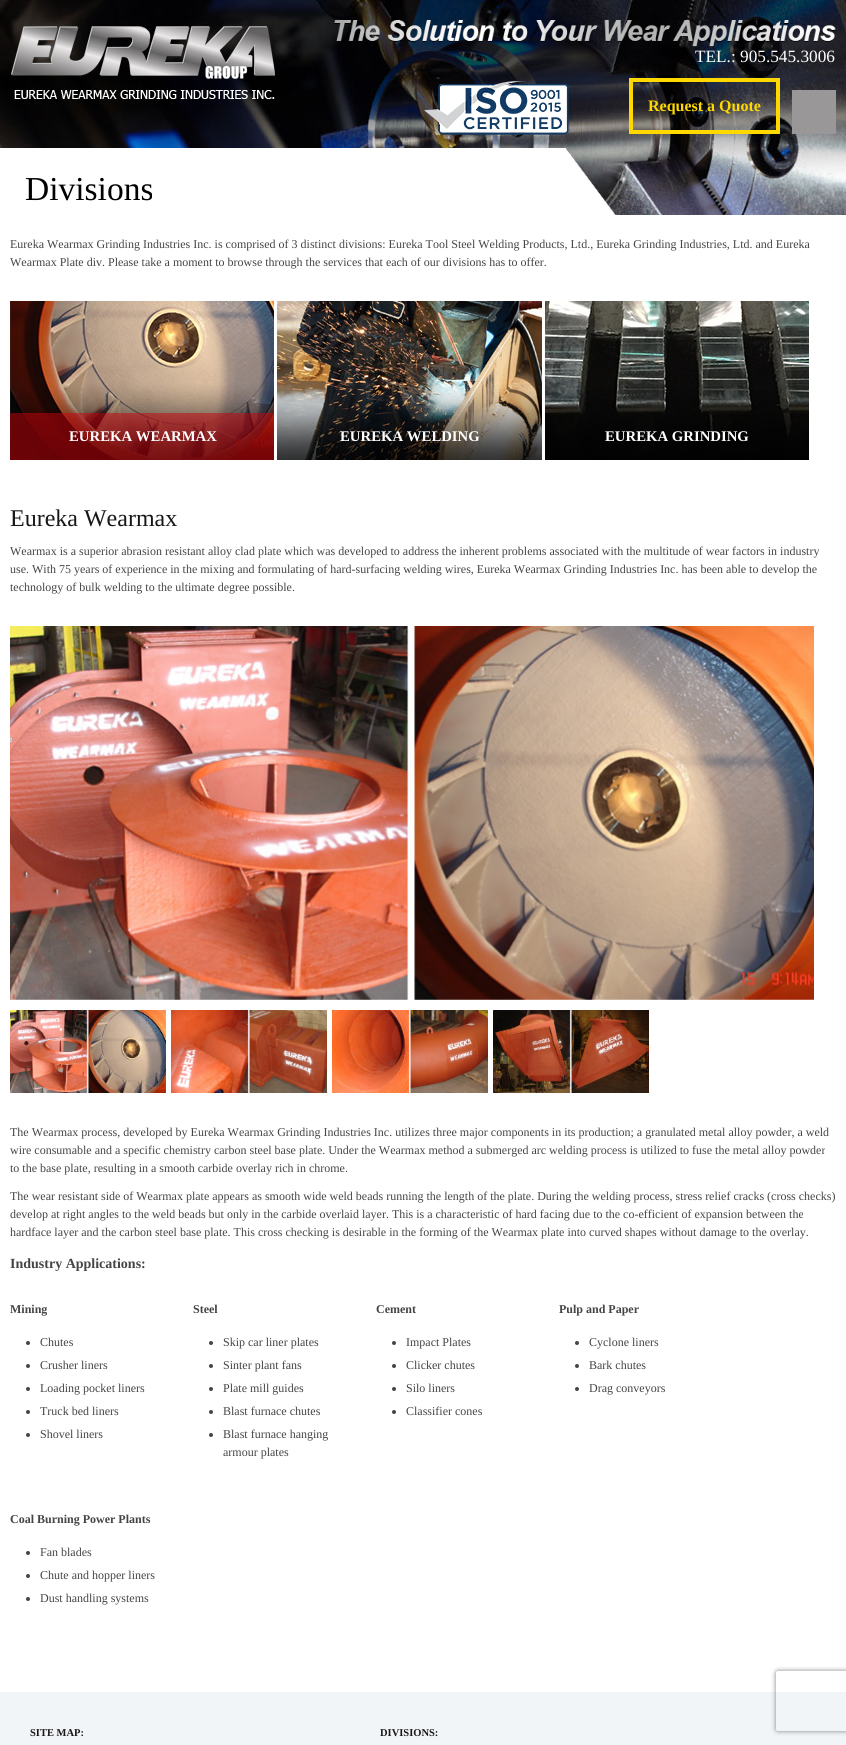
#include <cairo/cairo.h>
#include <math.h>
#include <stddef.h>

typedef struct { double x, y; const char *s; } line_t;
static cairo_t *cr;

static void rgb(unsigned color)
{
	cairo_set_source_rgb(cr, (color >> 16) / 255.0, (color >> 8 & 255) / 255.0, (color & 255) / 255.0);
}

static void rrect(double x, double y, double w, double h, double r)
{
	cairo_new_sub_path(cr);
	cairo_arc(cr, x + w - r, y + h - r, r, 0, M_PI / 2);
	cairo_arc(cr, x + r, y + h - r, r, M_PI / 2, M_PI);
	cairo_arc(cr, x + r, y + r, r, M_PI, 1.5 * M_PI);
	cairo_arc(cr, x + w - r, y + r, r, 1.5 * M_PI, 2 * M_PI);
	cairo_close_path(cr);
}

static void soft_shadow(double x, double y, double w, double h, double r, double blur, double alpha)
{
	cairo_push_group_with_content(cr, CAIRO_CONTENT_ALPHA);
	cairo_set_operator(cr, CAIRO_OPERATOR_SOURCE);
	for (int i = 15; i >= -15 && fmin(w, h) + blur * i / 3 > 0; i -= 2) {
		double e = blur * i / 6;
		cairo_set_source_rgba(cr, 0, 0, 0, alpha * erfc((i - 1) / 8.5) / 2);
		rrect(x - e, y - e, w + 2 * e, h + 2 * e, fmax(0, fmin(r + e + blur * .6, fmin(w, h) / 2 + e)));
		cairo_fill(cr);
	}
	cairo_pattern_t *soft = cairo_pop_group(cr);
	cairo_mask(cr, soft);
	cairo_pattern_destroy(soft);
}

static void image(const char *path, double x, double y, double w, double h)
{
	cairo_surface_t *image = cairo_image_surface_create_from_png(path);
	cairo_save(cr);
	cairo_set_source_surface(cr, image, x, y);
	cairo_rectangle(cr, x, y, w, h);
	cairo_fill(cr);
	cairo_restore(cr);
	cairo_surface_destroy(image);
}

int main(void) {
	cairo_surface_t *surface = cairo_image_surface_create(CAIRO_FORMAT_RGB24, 846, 1745);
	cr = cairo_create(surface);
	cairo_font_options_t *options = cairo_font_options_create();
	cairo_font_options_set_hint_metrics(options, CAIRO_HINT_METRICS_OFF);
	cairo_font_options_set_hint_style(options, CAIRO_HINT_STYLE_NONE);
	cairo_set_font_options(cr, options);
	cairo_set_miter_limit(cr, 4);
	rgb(0xffffff);
	cairo_paint(cr);
	image("img/1.png", 0, 0, 846, 215);
	rgb(0xffffff);
	cairo_rectangle(cr, 0, 148, 423, 67);
	cairo_fill(cr);
	image("img/2.png", 423, 148, 193, 67);
	image("img/3.png", 11, 26, 264, 73);
	image("img/4.png", 334, 20, 502, 27);
	image("img/5.png", 424, 81, 145, 54);
	rgb(0x999798);
	cairo_rectangle(cr, 792, 90, 44, 44);
	cairo_fill(cr);
	cairo_rectangle(cr, 631, 80, 147, 52);
	rgb(0xffd800);
	cairo_set_line_width(cr, 4);
	cairo_stroke(cr);
	image("img/6.png", 10, 301, 264, 159);
	cairo_set_source_rgba(cr, 0.8, 0.008, 0.047, 0.5);
	cairo_rectangle(cr, 10, 413, 264, 47);
	cairo_fill(cr);
	image("img/7.png", 277, 301, 265, 159);
	image("img/8.png", 545, 301, 264, 159);
	image("img/9.png", 10, 626, 804, 374);
	image("img/10.png", 10, 1010, 156, 83);
	image("img/11.png", 171, 1010, 156, 83);
	image("img/12.png", 332, 1010, 156, 83);
	image("img/13.png", 493, 1010, 156, 83);
	rgb(0x454545);
	cairo_arc(cr, 28, 1343, 2, 0, 2 * M_PI);
	cairo_fill(cr);
	cairo_arc(cr, 28, 1366, 2, 0, 2 * M_PI);
	cairo_fill(cr);
	cairo_arc(cr, 28, 1389, 2, 0, 2 * M_PI);
	cairo_fill(cr);
	cairo_arc(cr, 28, 1412, 2, 0, 2 * M_PI);
	cairo_fill(cr);
	cairo_arc(cr, 28, 1435, 2, 0, 2 * M_PI);
	cairo_fill(cr);
	cairo_arc(cr, 211, 1343, 2, 0, 2 * M_PI);
	cairo_fill(cr);
	cairo_arc(cr, 211, 1366, 2, 0, 2 * M_PI);
	cairo_fill(cr);
	cairo_arc(cr, 211, 1389, 2, 0, 2 * M_PI);
	cairo_fill(cr);
	cairo_arc(cr, 211, 1412, 2, 0, 2 * M_PI);
	cairo_fill(cr);
	cairo_arc(cr, 211, 1435, 2, 0, 2 * M_PI);
	cairo_fill(cr);
	cairo_arc(cr, 394, 1343, 2, 0, 2 * M_PI);
	cairo_fill(cr);
	cairo_arc(cr, 394, 1366, 2, 0, 2 * M_PI);
	cairo_fill(cr);
	cairo_arc(cr, 394, 1389, 2, 0, 2 * M_PI);
	cairo_fill(cr);
	cairo_arc(cr, 394, 1412, 2, 0, 2 * M_PI);
	cairo_fill(cr);
	cairo_arc(cr, 577, 1343, 2, 0, 2 * M_PI);
	cairo_fill(cr);
	cairo_arc(cr, 577, 1366, 2, 0, 2 * M_PI);
	cairo_fill(cr);
	cairo_arc(cr, 577, 1389, 2, 0, 2 * M_PI);
	cairo_fill(cr);
	cairo_arc(cr, 28, 1553, 2, 0, 2 * M_PI);
	cairo_fill(cr);
	cairo_arc(cr, 28, 1576, 2, 0, 2 * M_PI);
	cairo_fill(cr);
	cairo_arc(cr, 28, 1599, 2, 0, 2 * M_PI);
	cairo_fill(cr);
	rgb(0xf2f5f8);
	cairo_rectangle(cr, 0, 1692, 846, 53);
	cairo_fill(cr);
	cairo_save(cr);
	cairo_set_fill_rule(cr, CAIRO_FILL_RULE_EVEN_ODD);
	cairo_new_path(cr);
	cairo_move_to(cr, 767, 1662);
	cairo_line_to(cr, 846, 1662);
	cairo_line_to(cr, 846, 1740);
	cairo_line_to(cr, 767, 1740);
	cairo_close_path(cr);
	cairo_move_to(cr, 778, 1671);
	cairo_line_to(cr, 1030, 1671);
	cairo_curve_to(cr, 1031, 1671, 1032, 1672, 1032, 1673);
	cairo_line_to(cr, 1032, 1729);
	cairo_curve_to(cr, 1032, 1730, 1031, 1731, 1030, 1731);
	cairo_line_to(cr, 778, 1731);
	cairo_curve_to(cr, 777, 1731, 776, 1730, 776, 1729);
	cairo_line_to(cr, 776, 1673);
	cairo_curve_to(cr, 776, 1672, 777, 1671, 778, 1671);
	cairo_close_path(cr);
	cairo_clip(cr);
	rgb(0x808080);
	soft_shadow(776, 1671, 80, 60, 2, 2.5, 1);
	cairo_restore(cr);
	cairo_select_font_face(cr, "Liberation Serif", CAIRO_FONT_SLANT_NORMAL, CAIRO_FONT_WEIGHT_NORMAL);
	cairo_set_font_size(cr, 17.25);
	rgb(0xffffff);
	cairo_move_to(cr, 695, 62);
	cairo_show_text(cr, "TEL.: 905.545.3006");
	cairo_select_font_face(cr, "Liberation Serif", CAIRO_FONT_SLANT_NORMAL, CAIRO_FONT_WEIGHT_BOLD);
	cairo_set_font_size(cr, 16);
	rgb(0xffd800);
	cairo_move_to(cr, 648, 111);
	cairo_show_text(cr, "Request a Quote");
	cairo_select_font_face(cr, "Liberation Serif", CAIRO_FONT_SLANT_NORMAL, CAIRO_FONT_WEIGHT_NORMAL);
	cairo_set_font_size(cr, 33.5);
	rgb(0x000000);
	cairo_move_to(cr, 25, 200);
	cairo_show_text(cr, "Divisions");
	cairo_set_font_size(cr, 12);
	rgb(0x454545);
	cairo_move_to(cr, 10, 248);
	cairo_show_text(cr, "Eureka Wearmax Grinding Industries Inc. is comprised of 3 distinct divisions: Eureka Tool Steel Welding Products, Ltd., Eureka Grinding Industries, Ltd. and Eureka");
	cairo_move_to(cr, 10, 266);
	cairo_show_text(cr, "Wearmax Plate div. Please take a moment to browse through the services that each of our divisions has to offer.");
	cairo_select_font_face(cr, "Liberation Serif", CAIRO_FONT_SLANT_NORMAL, CAIRO_FONT_WEIGHT_BOLD);
	cairo_set_font_size(cr, 14.75);
	rgb(0xffffff);
	{
		static const line_t items[] = {
			{69, 441, "EUREKA WEARMAX"},
			{340, 441, "EUREKA WELDING"},
			{605, 441, "EUREKA GRINDING"},
		};
		for (size_t i = 0; i < sizeof items / sizeof *items; i++) {
			cairo_move_to(cr, items[i].x, items[i].y);
			cairo_show_text(cr, items[i].s);
		}
	}
	cairo_select_font_face(cr, "Liberation Serif", CAIRO_FONT_SLANT_NORMAL, CAIRO_FONT_WEIGHT_NORMAL);
	cairo_set_font_size(cr, 24);
	rgb(0x171717);
	cairo_move_to(cr, 10, 526);
	cairo_show_text(cr, "Eureka Wearmax");
	cairo_set_font_size(cr, 12);
	rgb(0x454545);
	{
		static const line_t items[] = {
			{10, 555, "Wearmax is a superior abrasion resistant alloy clad plate which was developed to address the inherent problems associated with the multitude of wear factors in industry"},
			{10, 573, "use. With 75 years of experience in the mixing and formulating of hard-surfacing welding wires, Eureka Wearmax Grinding Industries Inc. has been able to develop the"},
			{10, 591, "technology of bulk welding to the ultimate degree possible."},
			{10, 1136, "The Wearmax process, developed by Eureka Wearmax Grinding Industries Inc. utilizes three major components in its production; a granulated metal alloy powder, a weld"},
			{10, 1154, "wire consumable and a specific chemistry carbon steel base plate. Under the Wearmax method a submerged arc welding process is utilized to fuse the metal alloy powder"},
			{10, 1172, "to the base plate, resulting in a smooth carbide overlay rich in chrome."},
			{10, 1200, "The wear resistant side of Wearmax plate appears as smooth wide weld beads running the length of the plate. During the welding process, stress relief cracks (cross checks)"},
			{10, 1218, "develop at right angles to the weld beads but only in the carbide overlaid layer. This is a characteristic of hard facing due to the co-efficient of expansion between the"},
			{10, 1236, "hardface layer and the carbon steel base plate. This cross checking is desirable in the forming of the Wearmax plate into curved shapes without damage to the overlay."},
		};
		for (size_t i = 0; i < sizeof items / sizeof *items; i++) {
			cairo_move_to(cr, items[i].x, items[i].y);
			cairo_show_text(cr, items[i].s);
		}
	}
	cairo_select_font_face(cr, "Liberation Serif", CAIRO_FONT_SLANT_NORMAL, CAIRO_FONT_WEIGHT_BOLD);
	cairo_set_font_size(cr, 14);
	cairo_move_to(cr, 10, 1268);
	cairo_show_text(cr, "Industry Applications:");
	cairo_set_font_size(cr, 12);
	cairo_move_to(cr, 10, 1313);
	cairo_show_text(cr, "Mining");
	cairo_select_font_face(cr, "Liberation Serif", CAIRO_FONT_SLANT_NORMAL, CAIRO_FONT_WEIGHT_NORMAL);
	{
		static const line_t items[] = {
			{40, 1346, "Chutes"},
			{40, 1369, "Crusher liners"},
			{40, 1392, "Loading pocket liners"},
			{40, 1415, "Truck bed liners"},
			{40, 1438, "Shovel liners"},
		};
		for (size_t i = 0; i < sizeof items / sizeof *items; i++) {
			cairo_move_to(cr, items[i].x, items[i].y);
			cairo_show_text(cr, items[i].s);
		}
	}
	cairo_select_font_face(cr, "Liberation Serif", CAIRO_FONT_SLANT_NORMAL, CAIRO_FONT_WEIGHT_BOLD);
	cairo_move_to(cr, 193, 1313);
	cairo_show_text(cr, "Steel");
	cairo_select_font_face(cr, "Liberation Serif", CAIRO_FONT_SLANT_NORMAL, CAIRO_FONT_WEIGHT_NORMAL);
	{
		static const line_t items[] = {
			{223, 1346, "Skip car liner plates"},
			{223, 1369, "Sinter plant fans"},
			{223, 1392, "Plate mill guides"},
			{223, 1415, "Blast furnace chutes"},
			{223, 1438, "Blast furnace hanging"},
			{223, 1456, "armour plates"},
		};
		for (size_t i = 0; i < sizeof items / sizeof *items; i++) {
			cairo_move_to(cr, items[i].x, items[i].y);
			cairo_show_text(cr, items[i].s);
		}
	}
	cairo_select_font_face(cr, "Liberation Serif", CAIRO_FONT_SLANT_NORMAL, CAIRO_FONT_WEIGHT_BOLD);
	cairo_move_to(cr, 376, 1313);
	cairo_show_text(cr, "Cement");
	cairo_select_font_face(cr, "Liberation Serif", CAIRO_FONT_SLANT_NORMAL, CAIRO_FONT_WEIGHT_NORMAL);
	{
		static const line_t items[] = {
			{406, 1346, "Impact Plates"},
			{406, 1369, "Clicker chutes"},
			{406, 1392, "Silo liners"},
			{406, 1415, "Classifier cones"},
		};
		for (size_t i = 0; i < sizeof items / sizeof *items; i++) {
			cairo_move_to(cr, items[i].x, items[i].y);
			cairo_show_text(cr, items[i].s);
		}
	}
	cairo_select_font_face(cr, "Liberation Serif", CAIRO_FONT_SLANT_NORMAL, CAIRO_FONT_WEIGHT_BOLD);
	cairo_move_to(cr, 559, 1313);
	cairo_show_text(cr, "Pulp and Paper");
	cairo_select_font_face(cr, "Liberation Serif", CAIRO_FONT_SLANT_NORMAL, CAIRO_FONT_WEIGHT_NORMAL);
	{
		static const line_t items[] = {
			{589, 1346, "Cyclone liners"},
			{589, 1369, "Bark chutes"},
			{589, 1392, "Drag conveyors"},
		};
		for (size_t i = 0; i < sizeof items / sizeof *items; i++) {
			cairo_move_to(cr, items[i].x, items[i].y);
			cairo_show_text(cr, items[i].s);
		}
	}
	cairo_select_font_face(cr, "Liberation Serif", CAIRO_FONT_SLANT_NORMAL, CAIRO_FONT_WEIGHT_BOLD);
	cairo_move_to(cr, 10, 1523);
	cairo_show_text(cr, "Coal Burning Power Plants");
	cairo_select_font_face(cr, "Liberation Serif", CAIRO_FONT_SLANT_NORMAL, CAIRO_FONT_WEIGHT_NORMAL);
	{
		static const line_t items[] = {
			{40, 1556, "Fan blades"},
			{40, 1579, "Chute and hopper liners"},
			{40, 1602, "Dust handling systems"},
		};
		for (size_t i = 0; i < sizeof items / sizeof *items; i++) {
			cairo_move_to(cr, items[i].x, items[i].y);
			cairo_show_text(cr, items[i].s);
		}
	}
	cairo_select_font_face(cr, "Liberation Serif", CAIRO_FONT_SLANT_NORMAL, CAIRO_FONT_WEIGHT_BOLD);
	cairo_set_font_size(cr, 10.5);
	rgb(0x171717);
	cairo_move_to(cr, 30, 1736);
	cairo_show_text(cr, "SITE MAP:");
	cairo_move_to(cr, 380, 1736);
	cairo_show_text(cr, "DIVISIONS:");
	cairo_surface_write_to_png(surface, "page.png");
	cairo_font_options_destroy(options);
	cairo_destroy(cr);
	cairo_surface_destroy(surface);
	return 0;
}
